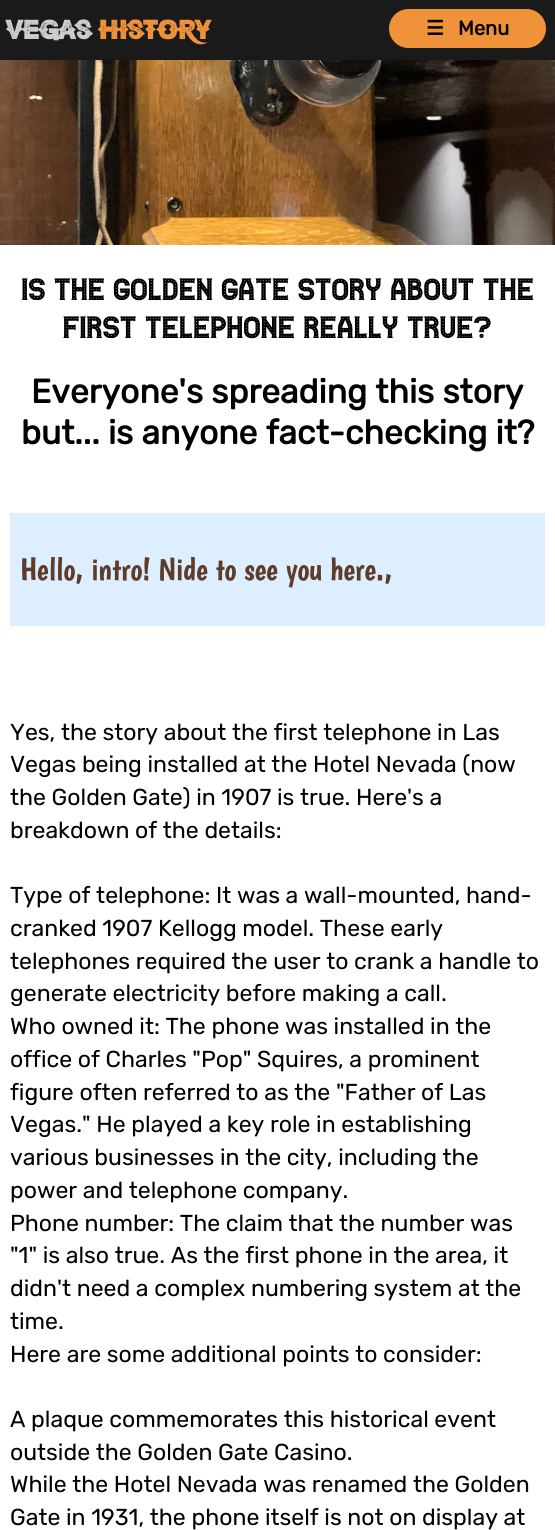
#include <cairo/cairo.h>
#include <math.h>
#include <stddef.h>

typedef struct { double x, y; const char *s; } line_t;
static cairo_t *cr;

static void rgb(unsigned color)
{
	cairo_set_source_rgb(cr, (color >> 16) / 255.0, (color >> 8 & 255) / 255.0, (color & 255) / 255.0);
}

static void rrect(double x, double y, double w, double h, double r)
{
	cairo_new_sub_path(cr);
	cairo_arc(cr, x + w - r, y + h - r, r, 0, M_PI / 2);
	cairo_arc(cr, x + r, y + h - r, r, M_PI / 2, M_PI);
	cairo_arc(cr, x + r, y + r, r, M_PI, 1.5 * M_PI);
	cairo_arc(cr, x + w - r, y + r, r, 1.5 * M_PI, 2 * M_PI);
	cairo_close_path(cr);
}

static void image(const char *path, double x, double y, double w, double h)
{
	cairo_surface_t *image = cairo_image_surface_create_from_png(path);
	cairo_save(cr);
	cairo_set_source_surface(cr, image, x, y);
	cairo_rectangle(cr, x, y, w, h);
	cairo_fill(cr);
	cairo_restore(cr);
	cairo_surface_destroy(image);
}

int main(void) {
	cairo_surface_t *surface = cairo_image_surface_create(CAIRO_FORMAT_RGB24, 555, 1530);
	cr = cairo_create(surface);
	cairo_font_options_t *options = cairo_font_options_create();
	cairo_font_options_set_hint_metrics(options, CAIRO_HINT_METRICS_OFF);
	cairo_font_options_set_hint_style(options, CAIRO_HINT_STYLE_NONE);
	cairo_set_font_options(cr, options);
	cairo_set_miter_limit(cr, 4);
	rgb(0xffffff);
	cairo_paint(cr);
	rgb(0x1a1a1a);
	cairo_rectangle(cr, 0, 0, 555, 60);
	cairo_fill(cr);
	rgb(0xf0923a);
	rrect(389, 9, 157, 39, 19.5);
	cairo_fill(cr);
	image("img/1.png", 0, 60, 555, 185);
	rgb(0xddeeff);
	cairo_rectangle(cr, 10, 513, 535, 113);
	cairo_fill(cr);
	cairo_select_font_face(cr, "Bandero", CAIRO_FONT_SLANT_NORMAL, CAIRO_FONT_WEIGHT_NORMAL);
	cairo_set_font_size(cr, 27.5);
	rgb(0xcccccc);
	cairo_move_to(cr, 6, 39);
	cairo_show_text(cr, "Vegas");
	rgb(0xf0923a);
	cairo_move_to(cr, 99, 39);
	cairo_show_text(cr, "History");
	cairo_select_font_face(cr, "DejaVu Sans", CAIRO_FONT_SLANT_NORMAL, CAIRO_FONT_WEIGHT_BOLD);
	cairo_set_font_size(cr, 20);
	rgb(0x000000);
	cairo_move_to(cr, 426, 35);
	cairo_show_text(cr, "☰");
	cairo_select_font_face(cr, "Rubik", CAIRO_FONT_SLANT_NORMAL, CAIRO_FONT_WEIGHT_BOLD);
	cairo_move_to(cr, 458, 35);
	cairo_show_text(cr, "Menu");
	cairo_select_font_face(cr, "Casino", CAIRO_FONT_SLANT_NORMAL, CAIRO_FONT_WEIGHT_NORMAL);
	cairo_set_font_size(cr, 31.6);
	cairo_move_to(cr, 21, 300);
	cairo_show_text(cr, "Is the Golden Gate story about the");
	cairo_move_to(cr, 63, 338);
	cairo_show_text(cr, "first telephone really true?");
	cairo_select_font_face(cr, "Rubik", CAIRO_FONT_SLANT_NORMAL, CAIRO_FONT_WEIGHT_BOLD);
	cairo_set_font_size(cr, 33.6);
	cairo_move_to(cr, 31, 403);
	cairo_show_text(cr, "Everyone's spreading this story");
	cairo_move_to(cr, 21, 444);
	cairo_show_text(cr, "but... is anyone fact-checking it?");
	cairo_select_font_face(cr, "Boogaloo", CAIRO_FONT_SLANT_NORMAL, CAIRO_FONT_WEIGHT_NORMAL);
	cairo_set_font_size(cr, 31.6);
	rgb(0x5d3c2b);
	cairo_move_to(cr, 20, 580);
	cairo_show_text(cr, "Hello, intro! Nide to see you here.,");
	cairo_select_font_face(cr, "Rubik Light", CAIRO_FONT_SLANT_NORMAL, CAIRO_FONT_WEIGHT_NORMAL);
	cairo_set_font_size(cr, 23.05);
	rgb(0x000000);
	{
		static const line_t items[] = {
			{10, 740, "Yes, the story about the first telephone in Las"},
			{10, 772, "Vegas being installed at the Hotel Nevada (now"},
			{10, 805, "the Golden Gate) in 1907 is true. Here's a"},
			{10, 838, "breakdown of the details:"},
			{10, 903, "Type of telephone: It was a wall-mounted, hand-"},
			{10, 936, "cranked 1907 Kellogg model. These early"},
			{10, 969, "telephones required the user to crank a handle to"},
			{10, 1001, "generate electricity before making a call."},
			{10, 1034, "Who owned it: The phone was installed in the"},
			{10, 1067, "office of Charles \"Pop\" Squires, a prominent"},
			{10, 1100, "figure often referred to as the \"Father of Las"},
			{10, 1132, "Vegas.\" He played a key role in establishing"},
			{10, 1165, "various businesses in the city, including the"},
			{10, 1198, "power and telephone company."},
			{10, 1231, "Phone number: The claim that the number was"},
			{10, 1263, "\"1\" is also true. As the first phone in the area, it"},
			{10, 1296, "didn't need a complex numbering system at the"},
			{10, 1329, "time."},
			{10, 1362, "Here are some additional points to consider:"},
			{10, 1427, "A plaque commemorates this historical event"},
			{10, 1460, "outside the Golden Gate Casino."},
			{10, 1492, "While the Hotel Nevada was renamed the Golden"},
			{10, 1525, "Gate in 1931, the phone itself is not on display at"},
		};
		for (size_t i = 0; i < sizeof items / sizeof *items; i++) {
			cairo_move_to(cr, items[i].x, items[i].y);
			cairo_show_text(cr, items[i].s);
		}
	}
	cairo_surface_write_to_png(surface, "page.png");
	cairo_font_options_destroy(options);
	cairo_destroy(cr);
	cairo_surface_destroy(surface);
	return 0;
}
